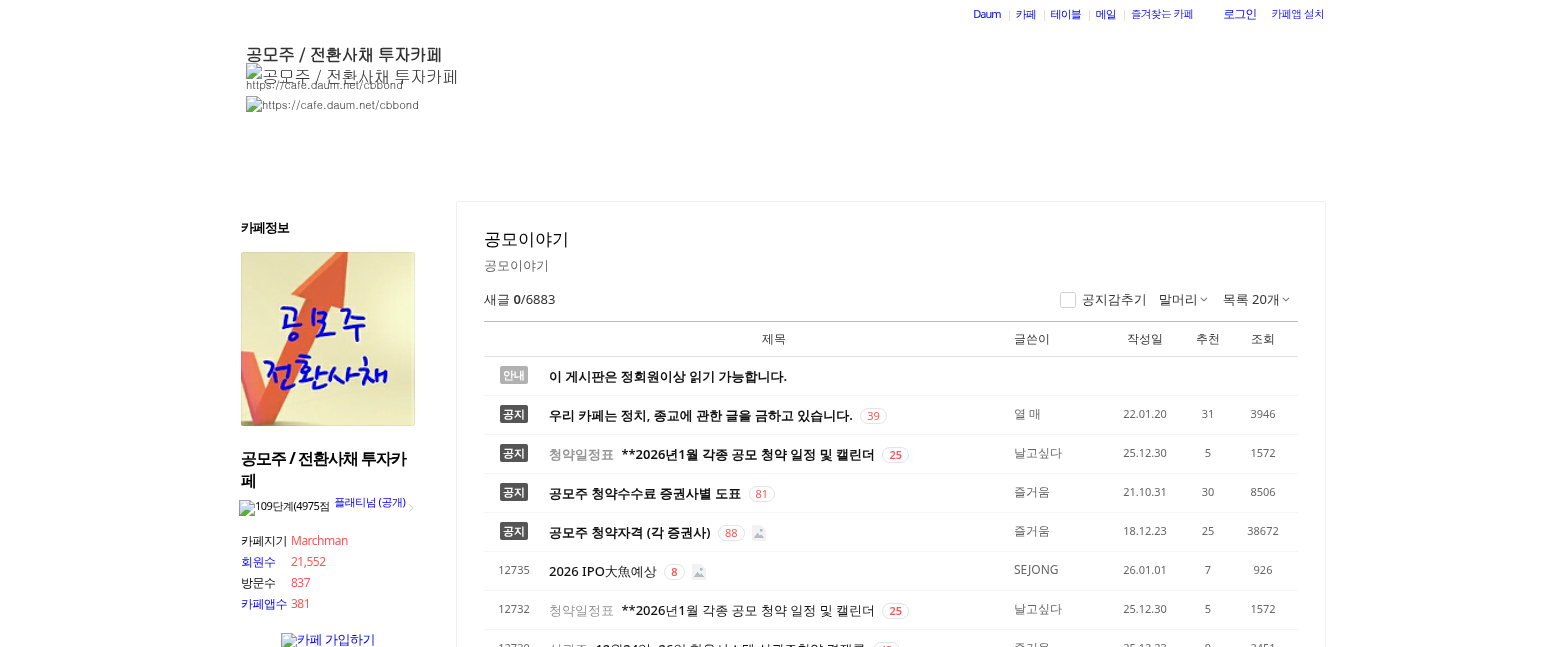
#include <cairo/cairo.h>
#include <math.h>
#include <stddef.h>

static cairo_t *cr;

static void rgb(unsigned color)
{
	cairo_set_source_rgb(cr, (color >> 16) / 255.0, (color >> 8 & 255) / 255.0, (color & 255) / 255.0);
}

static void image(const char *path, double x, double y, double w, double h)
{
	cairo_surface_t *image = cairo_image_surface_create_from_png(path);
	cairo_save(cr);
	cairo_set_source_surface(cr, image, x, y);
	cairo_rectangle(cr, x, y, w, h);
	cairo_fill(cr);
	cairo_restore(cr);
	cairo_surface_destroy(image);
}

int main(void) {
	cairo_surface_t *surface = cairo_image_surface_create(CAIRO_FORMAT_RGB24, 1552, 647);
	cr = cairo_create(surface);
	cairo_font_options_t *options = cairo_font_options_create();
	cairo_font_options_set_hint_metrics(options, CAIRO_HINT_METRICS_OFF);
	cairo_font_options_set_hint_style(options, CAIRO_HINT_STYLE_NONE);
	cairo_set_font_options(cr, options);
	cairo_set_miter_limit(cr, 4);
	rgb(0xffffff);
	cairo_paint(cr);
	image("img/1.png", 239, 9, 1087, 638);
	cairo_surface_write_to_png(surface, "page.png");
	cairo_font_options_destroy(options);
	cairo_destroy(cr);
	cairo_surface_destroy(surface);
	return 0;
}
